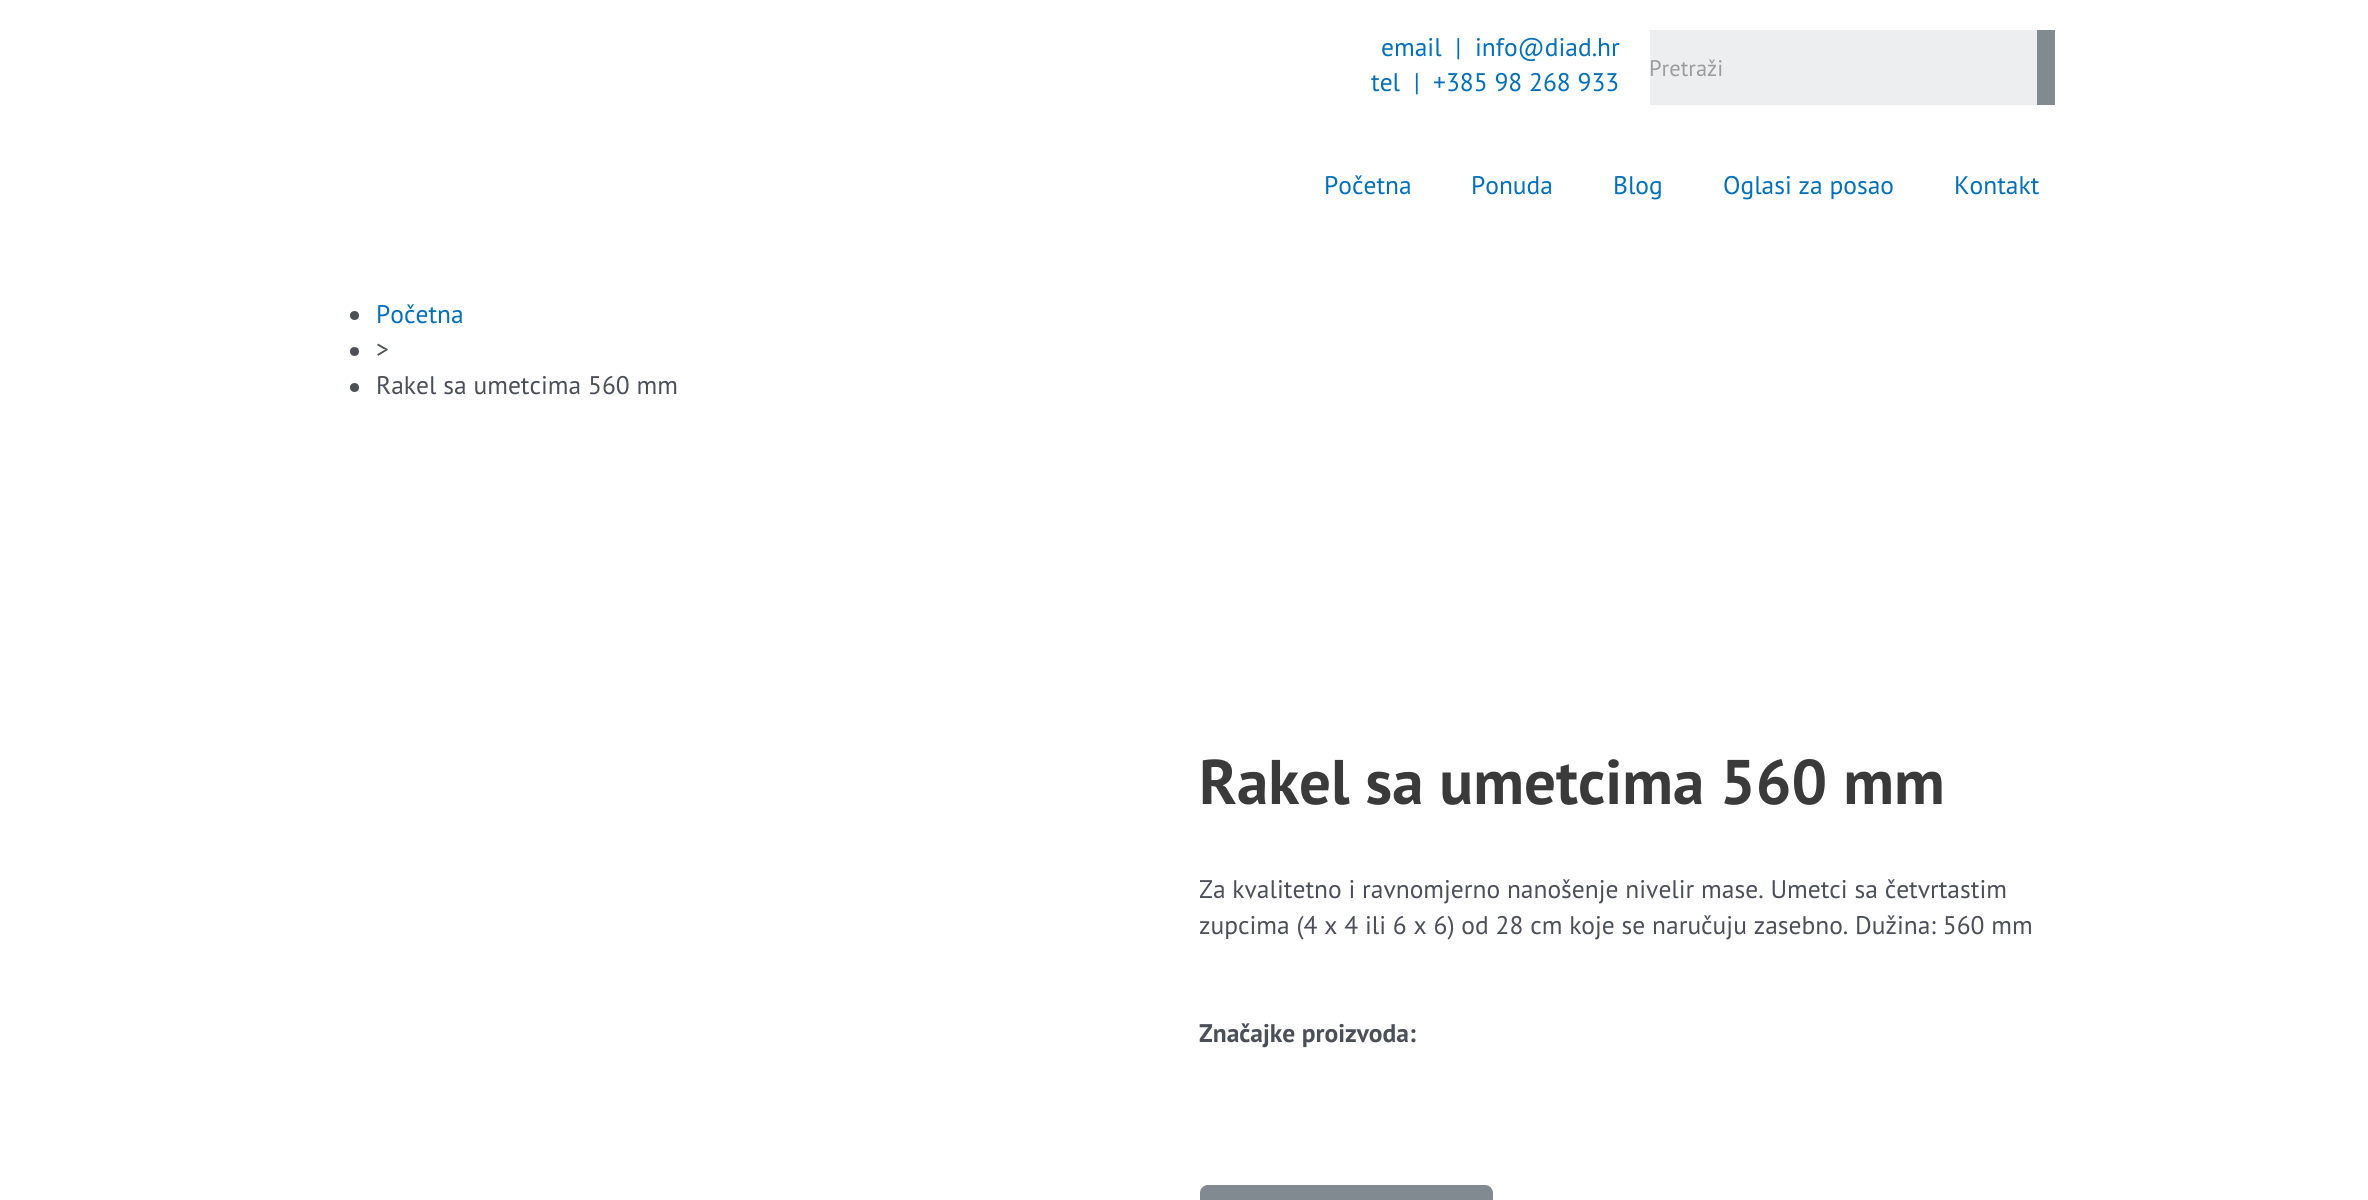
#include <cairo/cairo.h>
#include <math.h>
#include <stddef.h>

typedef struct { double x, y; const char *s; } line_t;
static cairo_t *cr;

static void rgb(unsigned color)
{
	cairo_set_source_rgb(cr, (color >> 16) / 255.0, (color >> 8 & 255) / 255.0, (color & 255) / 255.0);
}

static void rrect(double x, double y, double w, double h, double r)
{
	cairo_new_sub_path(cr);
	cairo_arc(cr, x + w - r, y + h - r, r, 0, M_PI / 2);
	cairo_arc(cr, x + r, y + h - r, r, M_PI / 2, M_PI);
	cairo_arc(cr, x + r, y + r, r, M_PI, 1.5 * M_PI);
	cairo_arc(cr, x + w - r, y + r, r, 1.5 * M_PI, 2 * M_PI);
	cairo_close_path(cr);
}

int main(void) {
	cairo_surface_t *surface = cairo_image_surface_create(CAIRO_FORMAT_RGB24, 2368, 1200);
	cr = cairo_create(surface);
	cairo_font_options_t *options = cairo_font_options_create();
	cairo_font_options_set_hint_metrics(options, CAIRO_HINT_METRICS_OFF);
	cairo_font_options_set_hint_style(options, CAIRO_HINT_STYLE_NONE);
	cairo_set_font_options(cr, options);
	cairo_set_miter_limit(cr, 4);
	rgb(0xffffff);
	cairo_paint(cr);
	rgb(0xeceeef);
	cairo_rectangle(cr, 1650, 30, 387, 75);
	cairo_fill(cr);
	rgb(0x818a91);
	cairo_rectangle(cr, 2037, 30, 18, 75);
	cairo_fill(cr);
	rgb(0x4b4f58);
	cairo_arc(cr, 354.5, 315.5, 4.5, 0, 2 * M_PI);
	cairo_fill(cr);
	cairo_arc(cr, 354.5, 351.5, 4.5, 0, 2 * M_PI);
	cairo_fill(cr);
	cairo_arc(cr, 354.5, 387.5, 4.5, 0, 2 * M_PI);
	cairo_fill(cr);
	rgb(0x818a91);
	rrect(1200, 1185, 293, 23, 8);
	cairo_fill(cr);
	cairo_select_font_face(cr, "PT Sans", CAIRO_FONT_SLANT_NORMAL, CAIRO_FONT_WEIGHT_NORMAL);
	cairo_set_font_size(cr, 25.5);
	rgb(0x0170b9);
	{
		static const line_t items[] = {
			{1381, 56, "email  |"},
			{1475, 56, "info@diad.hr"},
			{1371, 91, "tel  |"},
			{1433, 91, "+385 98 268 933"},
		};
		for (size_t i = 0; i < sizeof items / sizeof *items; i++) {
			cairo_move_to(cr, items[i].x, items[i].y);
			cairo_show_text(cr, items[i].s);
		}
	}
	cairo_set_font_size(cr, 22.5);
	rgb(0x9c9c9d);
	cairo_move_to(cr, 1649, 76);
	cairo_show_text(cr, "Pretraži");
	cairo_set_font_size(cr, 25.5);
	rgb(0x0170b9);
	{
		static const line_t items[] = {
			{1324, 194, "Početna"},
			{1471, 194, "Ponuda"},
			{1613, 194, "Blog"},
			{1723, 194, "Oglasi za posao"},
			{1954, 194, "Kontakt"},
			{376, 323, "Početna"},
		};
		for (size_t i = 0; i < sizeof items / sizeof *items; i++) {
			cairo_move_to(cr, items[i].x, items[i].y);
			cairo_show_text(cr, items[i].s);
		}
	}
	rgb(0x4b4f58);
	cairo_move_to(cr, 376, 358);
	cairo_show_text(cr, ">");
	cairo_move_to(cr, 376, 394);
	cairo_show_text(cr, "Rakel sa umetcima 560 mm");
	cairo_select_font_face(cr, "PT Sans", CAIRO_FONT_SLANT_NORMAL, CAIRO_FONT_WEIGHT_BOLD);
	cairo_set_font_size(cr, 63);
	rgb(0x3a3a3a);
	cairo_move_to(cr, 1199, 804);
	cairo_show_text(cr, "Rakel sa umetcima 560 mm");
	cairo_select_font_face(cr, "PT Sans", CAIRO_FONT_SLANT_NORMAL, CAIRO_FONT_WEIGHT_NORMAL);
	cairo_set_font_size(cr, 25.5);
	rgb(0x4b4f58);
	cairo_move_to(cr, 1199, 898);
	cairo_show_text(cr, "Za kvalitetno i ravnomjerno nanošenje nivelir mase. Umetci sa četvrtastim");
	cairo_move_to(cr, 1199, 934);
	cairo_show_text(cr, "zupcima (4 x 4 ili 6 x 6) od 28 cm koje se naručuju zasebno. Dužina: 560 mm");
	cairo_select_font_face(cr, "PT Sans", CAIRO_FONT_SLANT_NORMAL, CAIRO_FONT_WEIGHT_BOLD);
	cairo_move_to(cr, 1199, 1042);
	cairo_show_text(cr, "Značajke proizvoda:");
	cairo_surface_write_to_png(surface, "page.png");
	cairo_font_options_destroy(options);
	cairo_destroy(cr);
	cairo_surface_destroy(surface);
	return 0;
}
